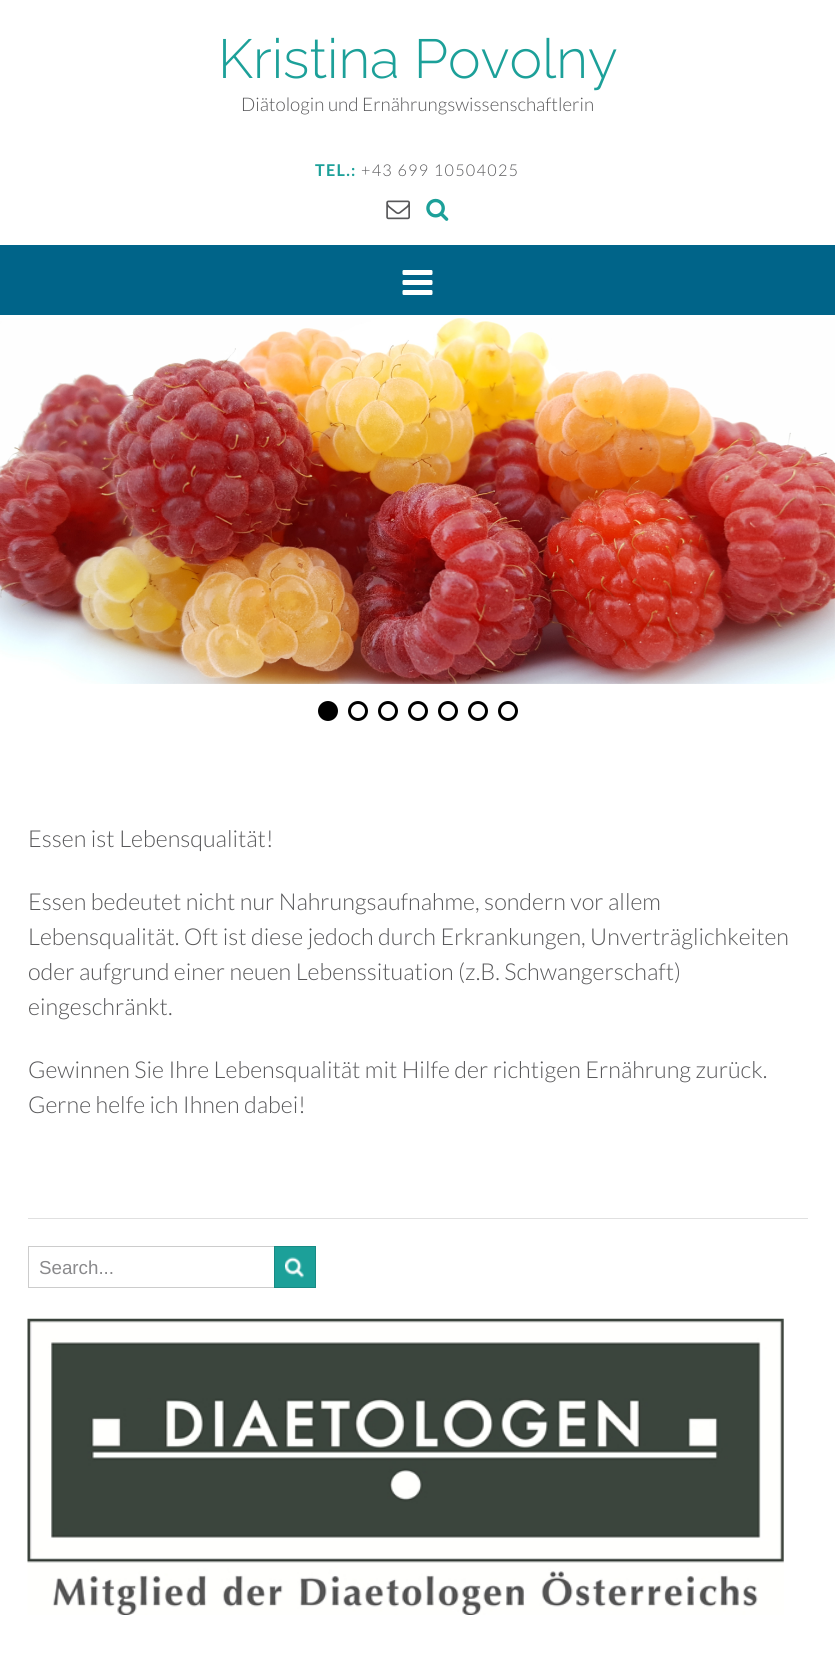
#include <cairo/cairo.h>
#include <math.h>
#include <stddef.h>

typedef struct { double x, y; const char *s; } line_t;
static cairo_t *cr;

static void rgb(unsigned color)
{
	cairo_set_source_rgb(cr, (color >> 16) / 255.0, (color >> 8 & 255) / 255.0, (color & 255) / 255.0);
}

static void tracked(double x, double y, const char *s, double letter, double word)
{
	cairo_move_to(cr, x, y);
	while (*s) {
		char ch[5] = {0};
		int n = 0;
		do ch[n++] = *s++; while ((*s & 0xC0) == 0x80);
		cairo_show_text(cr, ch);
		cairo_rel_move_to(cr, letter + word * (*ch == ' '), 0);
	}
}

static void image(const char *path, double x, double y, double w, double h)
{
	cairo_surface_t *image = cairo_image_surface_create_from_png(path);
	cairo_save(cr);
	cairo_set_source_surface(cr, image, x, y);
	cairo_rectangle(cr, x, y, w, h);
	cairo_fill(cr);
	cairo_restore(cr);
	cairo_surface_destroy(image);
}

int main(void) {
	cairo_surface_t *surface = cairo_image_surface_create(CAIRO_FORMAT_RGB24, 835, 1655);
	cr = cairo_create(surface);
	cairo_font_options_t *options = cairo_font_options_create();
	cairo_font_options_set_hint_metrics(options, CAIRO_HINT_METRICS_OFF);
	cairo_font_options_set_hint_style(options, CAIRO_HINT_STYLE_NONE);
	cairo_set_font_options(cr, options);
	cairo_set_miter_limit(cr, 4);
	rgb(0xffffff);
	cairo_paint(cr);
	image("img/1.png", 386, 200, 24, 20);
	image("img/2.png", 426, 198, 23, 23);
	rgb(0x006489);
	cairo_rectangle(cr, 0, 245, 835, 70);
	cairo_fill(cr);
	image("img/3.png", 402, 270, 31, 25);
	image("img/4.png", 0, 318, 835, 366);
	rgb(0x000000);
	cairo_arc(cr, 328, 711, 8.5, 0, 2 * M_PI);
	cairo_fill_preserve(cr);
	cairo_set_line_width(cr, 3);
	cairo_stroke(cr);
	cairo_arc(cr, 358, 711, 8.5, 0, 2 * M_PI);
	cairo_stroke(cr);
	cairo_arc(cr, 388, 711, 8.5, 0, 2 * M_PI);
	cairo_stroke(cr);
	cairo_arc(cr, 418, 711, 8.5, 0, 2 * M_PI);
	cairo_stroke(cr);
	cairo_arc(cr, 448, 711, 8.5, 0, 2 * M_PI);
	cairo_stroke(cr);
	cairo_arc(cr, 478, 711, 8.5, 0, 2 * M_PI);
	cairo_stroke(cr);
	cairo_arc(cr, 508, 711, 8.5, 0, 2 * M_PI);
	cairo_stroke(cr);
	rgb(0xe0e0e0);
	cairo_new_path(cr);
	cairo_move_to(cr, 28, 1218);
	cairo_line_to(cr, 28, 1219);
	cairo_line_to(cr, 808, 1219);
	cairo_line_to(cr, 808, 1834);
	cairo_line_to(cr, 808, 1218);
	cairo_close_path(cr);
	cairo_fill(cr);
	cairo_rectangle(cr, 28.5, 1246.5, 249, 41);
	rgb(0xcccccc);
	cairo_set_line_width(cr, 1);
	cairo_stroke(cr);
	rgb(0x1ca099);
	cairo_rectangle(cr, 275, 1247, 40, 40);
	cairo_fill(cr);
	image("img/5.png", 285, 1257, 19, 21);
	cairo_rectangle(cr, 274.5, 1246.5, 41, 41);
	rgb(0x188a84);
	cairo_stroke(cr);
	image("img/6.png", 27, 1318, 757, 297);
	cairo_select_font_face(cr, "Raleway Light", CAIRO_FONT_SLANT_NORMAL, CAIRO_FONT_WEIGHT_NORMAL);
	cairo_set_font_size(cr, 55);
	rgb(0x1ca099);
	cairo_move_to(cr, 218, 78);
	cairo_show_text(cr, "Kristina Povolny");
	cairo_select_font_face(cr, "Lato Light", CAIRO_FONT_SLANT_NORMAL, CAIRO_FONT_WEIGHT_NORMAL);
	cairo_set_font_size(cr, 18.75);
	rgb(0x58585a);
	cairo_move_to(cr, 241, 111);
	cairo_show_text(cr, "Diätologin und Ernährungswissenschaftlerin");
	cairo_select_font_face(cr, "Lato", CAIRO_FONT_SLANT_NORMAL, CAIRO_FONT_WEIGHT_BOLD);
	cairo_set_font_size(cr, 16.25);
	rgb(0x1ca099);
	tracked(315, 176, "TEL.:", 1.25, 0);
	cairo_select_font_face(cr, "Lato Light", CAIRO_FONT_SLANT_NORMAL, CAIRO_FONT_WEIGHT_NORMAL);
	rgb(0x58585a);
	tracked(361, 176, "+43 699 10504025", 1.25, 0);
	cairo_set_font_size(cr, 23.3);
	{
		static const line_t items[] = {
			{28, 847, "Essen ist Lebensqualität!"},
			{28, 910, "Essen bedeutet nicht nur Nahrungsaufnahme, sondern vor allem"},
			{28, 945, "Lebensqualität. Oft ist diese jedoch durch Erkrankungen, Unverträglichkeiten"},
			{28, 980, "oder aufgrund einer neuen Lebenssituation (z.B. Schwangerschaft)"},
			{28, 1015, "eingeschränkt."},
			{28, 1078, "Gewinnen Sie Ihre Lebensqualität mit Hilfe der richtigen Ernährung zurück."},
			{28, 1113, "Gerne helfe ich Ihnen dabei!"},
		};
		for (size_t i = 0; i < sizeof items / sizeof *items; i++) {
			cairo_move_to(cr, items[i].x, items[i].y);
			cairo_show_text(cr, items[i].s);
		}
	}
	cairo_select_font_face(cr, "Liberation Sans", CAIRO_FONT_SLANT_NORMAL, CAIRO_FONT_WEIGHT_NORMAL);
	cairo_set_font_size(cr, 18.75);
	rgb(0x8a8a8c);
	cairo_move_to(cr, 39, 1274);
	cairo_show_text(cr, "Search...");
	cairo_surface_write_to_png(surface, "page.png");
	cairo_font_options_destroy(options);
	cairo_destroy(cr);
	cairo_surface_destroy(surface);
	return 0;
}
